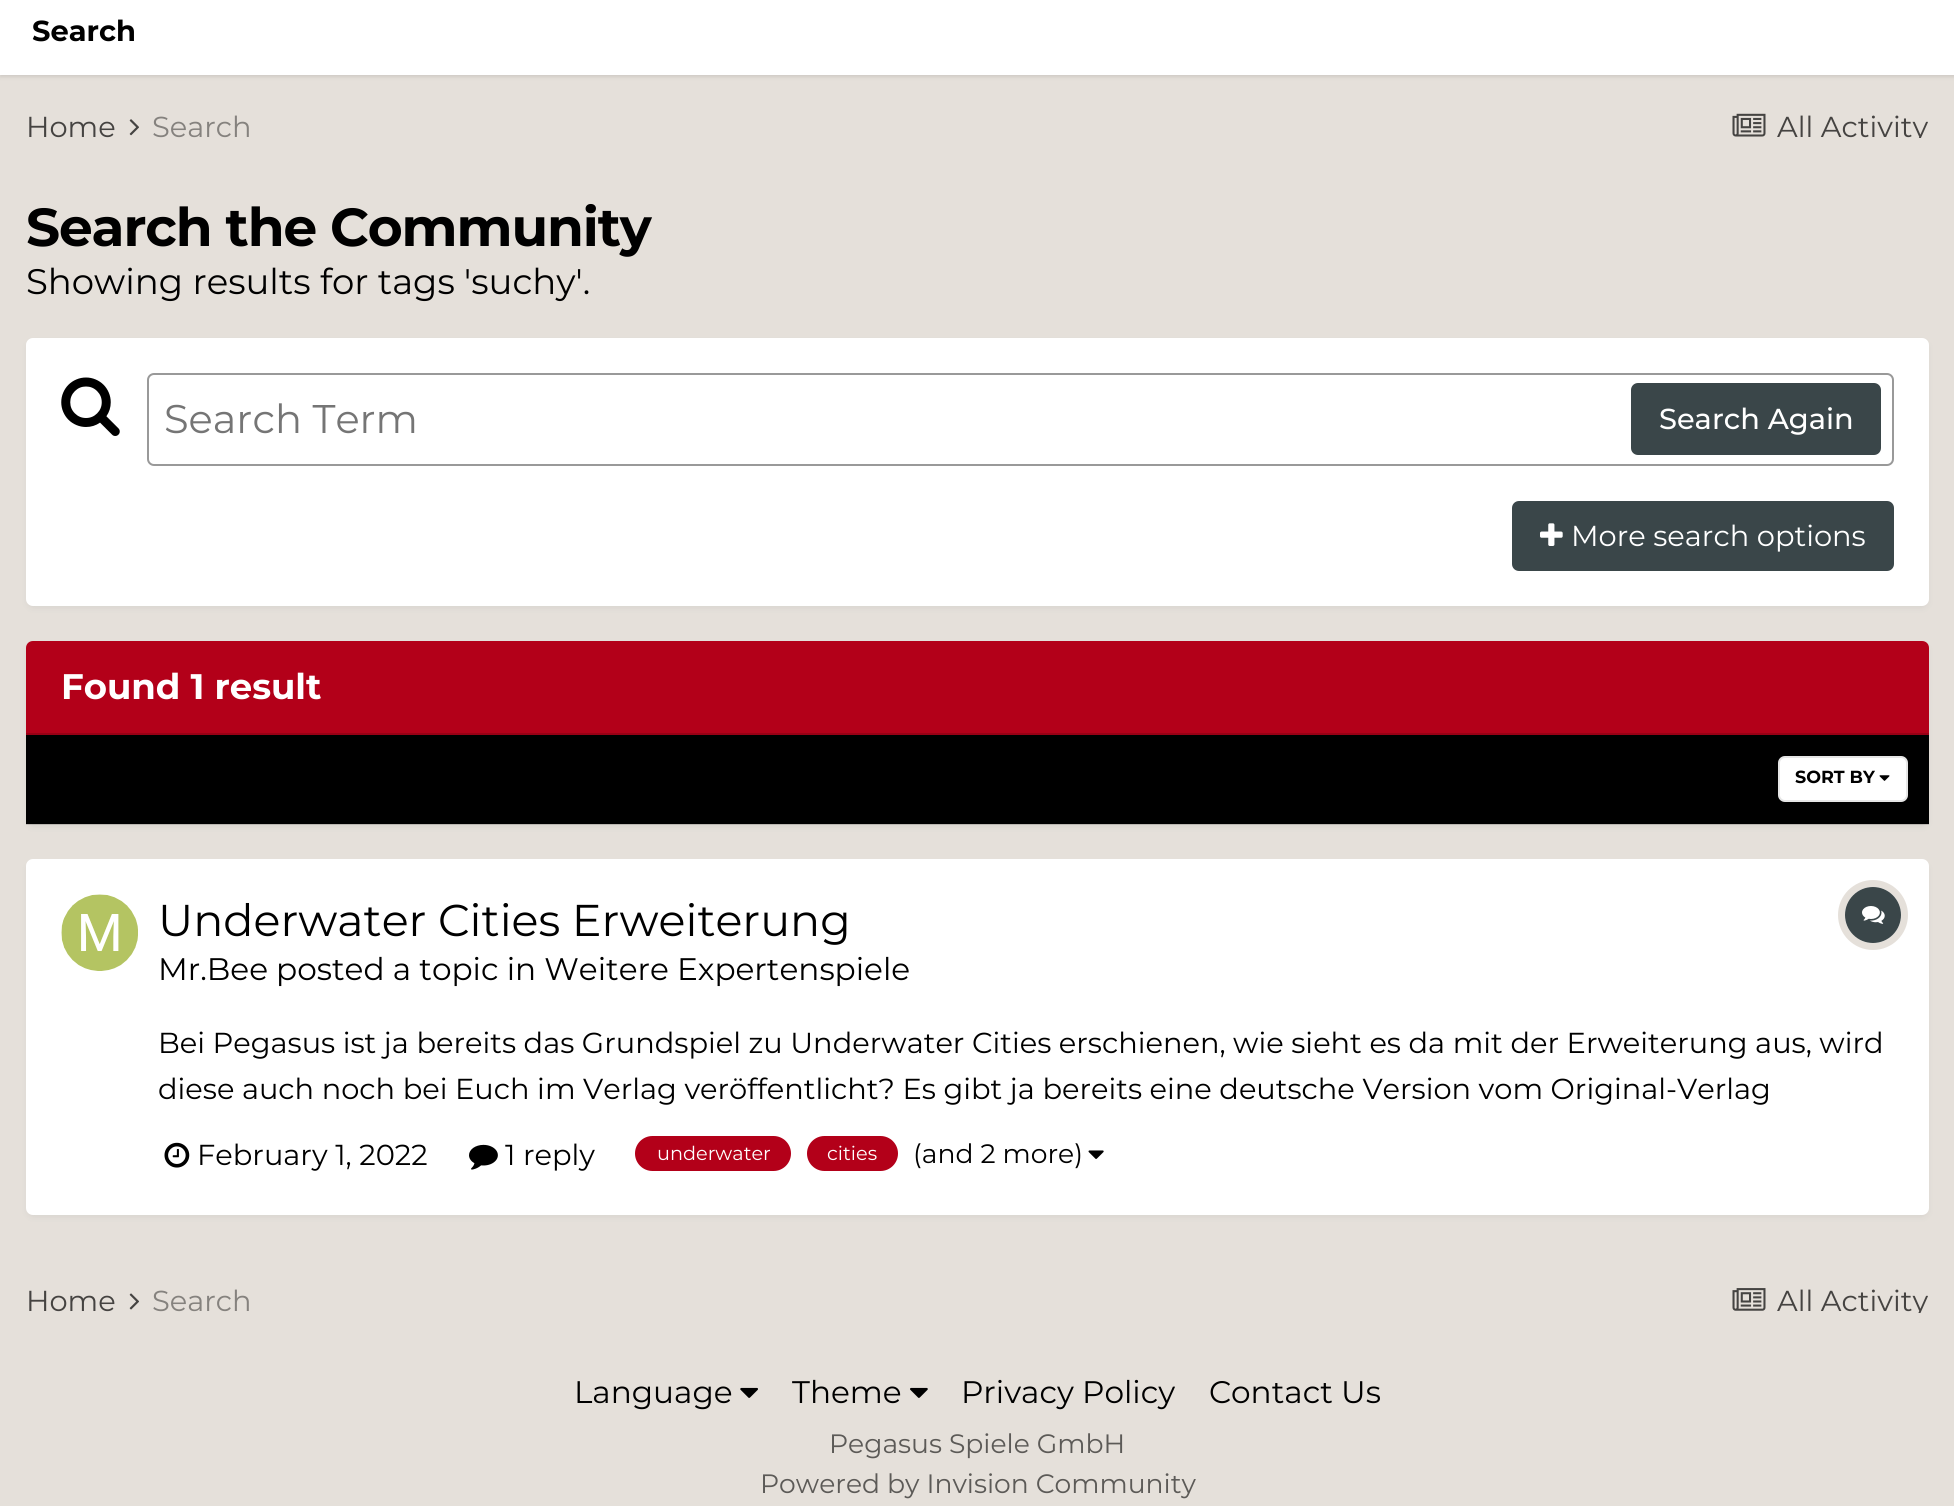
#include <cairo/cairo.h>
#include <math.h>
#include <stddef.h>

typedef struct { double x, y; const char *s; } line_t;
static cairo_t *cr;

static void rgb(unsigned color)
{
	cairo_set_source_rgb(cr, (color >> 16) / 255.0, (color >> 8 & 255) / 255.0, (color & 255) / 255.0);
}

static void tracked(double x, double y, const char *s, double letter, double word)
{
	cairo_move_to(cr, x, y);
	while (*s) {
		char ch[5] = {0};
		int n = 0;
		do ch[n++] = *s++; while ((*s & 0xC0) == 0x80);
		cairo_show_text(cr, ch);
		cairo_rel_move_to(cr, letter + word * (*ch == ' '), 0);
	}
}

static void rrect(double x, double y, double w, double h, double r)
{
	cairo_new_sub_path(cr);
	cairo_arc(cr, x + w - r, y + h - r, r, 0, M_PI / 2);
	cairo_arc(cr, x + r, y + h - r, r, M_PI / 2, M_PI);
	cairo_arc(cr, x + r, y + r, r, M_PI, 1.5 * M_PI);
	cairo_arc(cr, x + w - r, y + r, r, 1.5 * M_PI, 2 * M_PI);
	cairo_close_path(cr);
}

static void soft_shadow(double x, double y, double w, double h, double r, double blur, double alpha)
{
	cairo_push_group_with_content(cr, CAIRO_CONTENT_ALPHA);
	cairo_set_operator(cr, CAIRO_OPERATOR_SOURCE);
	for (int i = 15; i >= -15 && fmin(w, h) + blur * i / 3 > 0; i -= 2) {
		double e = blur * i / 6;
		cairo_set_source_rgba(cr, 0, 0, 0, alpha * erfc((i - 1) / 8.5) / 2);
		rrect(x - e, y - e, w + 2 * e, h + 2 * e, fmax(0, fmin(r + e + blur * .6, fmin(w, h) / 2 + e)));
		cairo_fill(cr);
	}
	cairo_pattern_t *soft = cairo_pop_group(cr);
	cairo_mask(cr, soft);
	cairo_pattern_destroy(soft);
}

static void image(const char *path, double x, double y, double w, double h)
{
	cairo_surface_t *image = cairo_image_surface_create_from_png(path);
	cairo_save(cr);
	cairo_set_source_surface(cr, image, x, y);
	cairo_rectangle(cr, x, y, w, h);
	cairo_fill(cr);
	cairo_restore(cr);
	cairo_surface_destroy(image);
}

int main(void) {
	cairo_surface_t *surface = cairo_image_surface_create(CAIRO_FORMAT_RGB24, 1954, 1506);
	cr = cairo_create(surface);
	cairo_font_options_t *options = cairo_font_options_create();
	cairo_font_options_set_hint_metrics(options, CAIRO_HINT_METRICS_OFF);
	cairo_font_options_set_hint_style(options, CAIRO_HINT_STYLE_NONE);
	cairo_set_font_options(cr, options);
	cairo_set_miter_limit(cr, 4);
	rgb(0xe5e0da);
	cairo_paint(cr);
	rgb(0x000000);
	soft_shadow(0, -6, 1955, 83, 0, 2, 0.1);
	rgb(0xffffff);
	cairo_rectangle(cr, 0, 0, 1954, 75);
	cairo_fill(cr);
	image("img/1.png", 129, 119, 10, 17);
	image("img/2.png", 1732, 113, 34, 24);
	rgb(0x3a4649);
	soft_shadow(28, 343, 1899, 264, 5, 3.5, 0.1);
	rgb(0xffffff);
	rrect(26, 338, 1903, 268, 7);
	cairo_fill(cr);
	image("img/3.png", 61, 377, 59, 59);
	rrect(148, 374, 1745, 91, 6);
	rgb(0x999999);
	cairo_stroke(cr);
	rgb(0x3a4649);
	rrect(1631, 383, 250, 72, 7);
	cairo_fill(cr);
	rrect(1512, 501, 382, 70, 7);
	cairo_fill(cr);
	image("img/4.png", 1540, 523, 23, 23);
	rgb(0x3a4649);
	soft_shadow(28, 646, 1899, 180, 5, 3.5, 0.1);
	rgb(0xb30019);
	cairo_new_path(cr);
	cairo_move_to(cr, 33, 641);
	cairo_line_to(cr, 1922, 641);
	cairo_curve_to(cr, 1926, 641, 1929, 644, 1929, 648);
	cairo_line_to(cr, 1929, 735);
	cairo_line_to(cr, 26, 735);
	cairo_line_to(cr, 26, 648);
	cairo_curve_to(cr, 26, 644, 29, 641, 33, 641);
	cairo_close_path(cr);
	cairo_fill(cr);
	rgb(0x980015);
	cairo_rectangle(cr, 26, 733, 1903, 2);
	cairo_fill(cr);
	rgb(0x000000);
	cairo_rectangle(cr, 26, 735, 1903, 89);
	cairo_fill(cr);
	cairo_set_source_rgba(cr, 0, 0, 0, 0.15);
	cairo_rectangle(cr, 26, 824, 1903, 1);
	cairo_fill(cr);
	rgb(0xffffff);
	rrect(1778, 756, 130, 46, 7);
	cairo_fill(cr);
	image("img/5.png", 1879, 775, 11, 6);
	rrect(1779, 757, 128, 44, 6);
	cairo_set_source_rgba(cr, 0, 0, 0, 0.1);
	cairo_stroke(cr);
	rgb(0x3a4649);
	soft_shadow(28, 865, 1899, 351, 5, 3.5, 0.1);
	rgb(0xffffff);
	rrect(26, 859, 1903, 356, 7);
	cairo_fill(cr);
	image("img/6.png", 61, 894, 77, 77);
	cairo_arc(cr, 1873, 915, 31.5, 0, 2 * M_PI);
	rgb(0xe5e0da);
	cairo_set_line_width(cr, 7);
	cairo_stroke(cr);
	rgb(0x3a4649);
	cairo_arc(cr, 1873, 915, 28, 0, 2 * M_PI);
	cairo_fill(cr);
	image("img/7.png", 1862, 906, 23, 18);
	image("img/8.png", 164, 1142, 26, 26);
	image("img/9.png", 469, 1144, 29, 26);
	rgb(0xb30019);
	rrect(635, 1136, 156, 35, 17.5);
	cairo_fill(cr);
	rrect(807, 1136, 91, 35, 17.5);
	cairo_fill(cr);
	image("img/10.png", 1088, 1150, 16, 9);
	image("img/11.png", 129, 1293, 10, 17);
	image("img/12.png", 1732, 1288, 34, 23);
	image("img/13.png", 740, 1387, 18, 11);
	image("img/14.png", 910, 1387, 18, 11);
	cairo_select_font_face(cr, "Montserrat", CAIRO_FONT_SLANT_NORMAL, CAIRO_FONT_WEIGHT_BOLD);
	cairo_set_font_size(cr, 28.88);
	rgb(0x000000);
	cairo_move_to(cr, 32, 41);
	cairo_show_text(cr, "Search");
	cairo_select_font_face(cr, "Montserrat", CAIRO_FONT_SLANT_NORMAL, CAIRO_FONT_WEIGHT_NORMAL);
	rgb(0x454341);
	cairo_move_to(cr, 26, 137);
	cairo_show_text(cr, "Home");
	rgb(0x85827e);
	cairo_move_to(cr, 152, 137);
	cairo_show_text(cr, "Search");
	cairo_save(cr);
	cairo_rectangle(cr, 1727, 112, 202, 26);
	cairo_clip(cr);
	rgb(0x454341);
	cairo_move_to(cr, 1777, 137);
	cairo_show_text(cr, "All Activity");
	cairo_restore(cr);
	cairo_select_font_face(cr, "Montserrat", CAIRO_FONT_SLANT_NORMAL, CAIRO_FONT_WEIGHT_BOLD);
	cairo_set_font_size(cr, 53.4);
	rgb(0x000000);
	tracked(26, 246, "Search the Community", -1.1, 0);
	cairo_select_font_face(cr, "Montserrat", CAIRO_FONT_SLANT_NORMAL, CAIRO_FONT_WEIGHT_NORMAL);
	cairo_set_font_size(cr, 35.5);
	cairo_move_to(cr, 26, 294);
	cairo_show_text(cr, "Showing results for tags 'suchy'.");
	cairo_set_font_size(cr, 40);
	rgb(0x757575);
	cairo_move_to(cr, 164, 433);
	cairo_show_text(cr, "Search Term");
	cairo_select_font_face(cr, "Montserrat Medium", CAIRO_FONT_SLANT_NORMAL, CAIRO_FONT_WEIGHT_NORMAL);
	cairo_set_font_size(cr, 28.88);
	rgb(0xffffff);
	cairo_move_to(cr, 1659, 429);
	cairo_show_text(cr, "Search Again");
	cairo_select_font_face(cr, "Montserrat", CAIRO_FONT_SLANT_NORMAL, CAIRO_FONT_WEIGHT_NORMAL);
	cairo_move_to(cr, 1571, 546);
	cairo_show_text(cr, "More search options");
	cairo_select_font_face(cr, "Montserrat", CAIRO_FONT_SLANT_NORMAL, CAIRO_FONT_WEIGHT_BOLD);
	cairo_set_font_size(cr, 35.5);
	cairo_move_to(cr, 61, 699);
	cairo_show_text(cr, "Found 1 result");
	cairo_set_font_size(cr, 17.5);
	rgb(0x000000);
	cairo_move_to(cr, 1795, 783);
	cairo_show_text(cr, "SORT BY");
	cairo_select_font_face(cr, "Montserrat", CAIRO_FONT_SLANT_NORMAL, CAIRO_FONT_WEIGHT_NORMAL);
	cairo_set_font_size(cr, 44.5);
	cairo_move_to(cr, 158, 936);
	cairo_show_text(cr, "Underwater Cities Erweiterung");
	cairo_set_font_size(cr, 31.15);
	cairo_move_to(cr, 158, 980);
	cairo_show_text(cr, "Mr.Bee posted a topic in Weitere Expertenspiele");
	cairo_set_font_size(cr, 28.88);
	{
		static const line_t items[] = {
			{158, 1053, "Bei Pegasus ist ja bereits das Grundspiel zu Underwater Cities erschienen, wie sieht es da mit der Erweiterung aus, wird"},
			{158, 1099, "diese auch noch bei Euch im Verlag veröffentlicht? Es gibt ja bereits eine deutsche Version vom Original-Verlag"},
			{197, 1165, "February 1, 2022"},
			{505, 1165, "1 reply"},
		};
		for (size_t i = 0; i < sizeof items / sizeof *items; i++) {
			cairo_move_to(cr, items[i].x, items[i].y);
			cairo_show_text(cr, items[i].s);
		}
	}
	cairo_set_font_size(cr, 19.25);
	rgb(0xffffff);
	cairo_move_to(cr, 657, 1160);
	cairo_show_text(cr, "underwater");
	cairo_move_to(cr, 827, 1160);
	cairo_show_text(cr, "cities");
	cairo_set_font_size(cr, 26.6);
	rgb(0x000000);
	cairo_move_to(cr, 913, 1163);
	cairo_show_text(cr, "(and 2 more)");
	cairo_set_font_size(cr, 28.88);
	rgb(0x454341);
	cairo_move_to(cr, 26, 1311);
	cairo_show_text(cr, "Home");
	rgb(0x85827e);
	cairo_move_to(cr, 152, 1311);
	cairo_show_text(cr, "Search");
	cairo_save(cr);
	cairo_rectangle(cr, 1727, 1286, 202, 27);
	cairo_clip(cr);
	rgb(0x454341);
	cairo_move_to(cr, 1777, 1311);
	cairo_show_text(cr, "All Activity");
	cairo_restore(cr);
	cairo_set_font_size(cr, 31.15);
	rgb(0x000000);
	{
		static const line_t items[] = {
			{574, 1403, "Language"},
			{792, 1403, "Theme"},
			{961, 1403, "Privacy Policy"},
			{1209, 1403, "Contact Us"},
		};
		for (size_t i = 0; i < sizeof items / sizeof *items; i++) {
			cairo_move_to(cr, items[i].x, items[i].y);
			cairo_show_text(cr, items[i].s);
		}
	}
	cairo_set_font_size(cr, 26.6);
	rgb(0x5c5a57);
	cairo_move_to(cr, 829, 1453);
	cairo_show_text(cr, "Pegasus Spiele GmbH");
	cairo_move_to(cr, 760, 1493);
	cairo_show_text(cr, "Powered by Invision Community");
	cairo_surface_write_to_png(surface, "page.png");
	cairo_font_options_destroy(options);
	cairo_destroy(cr);
	cairo_surface_destroy(surface);
	return 0;
}
